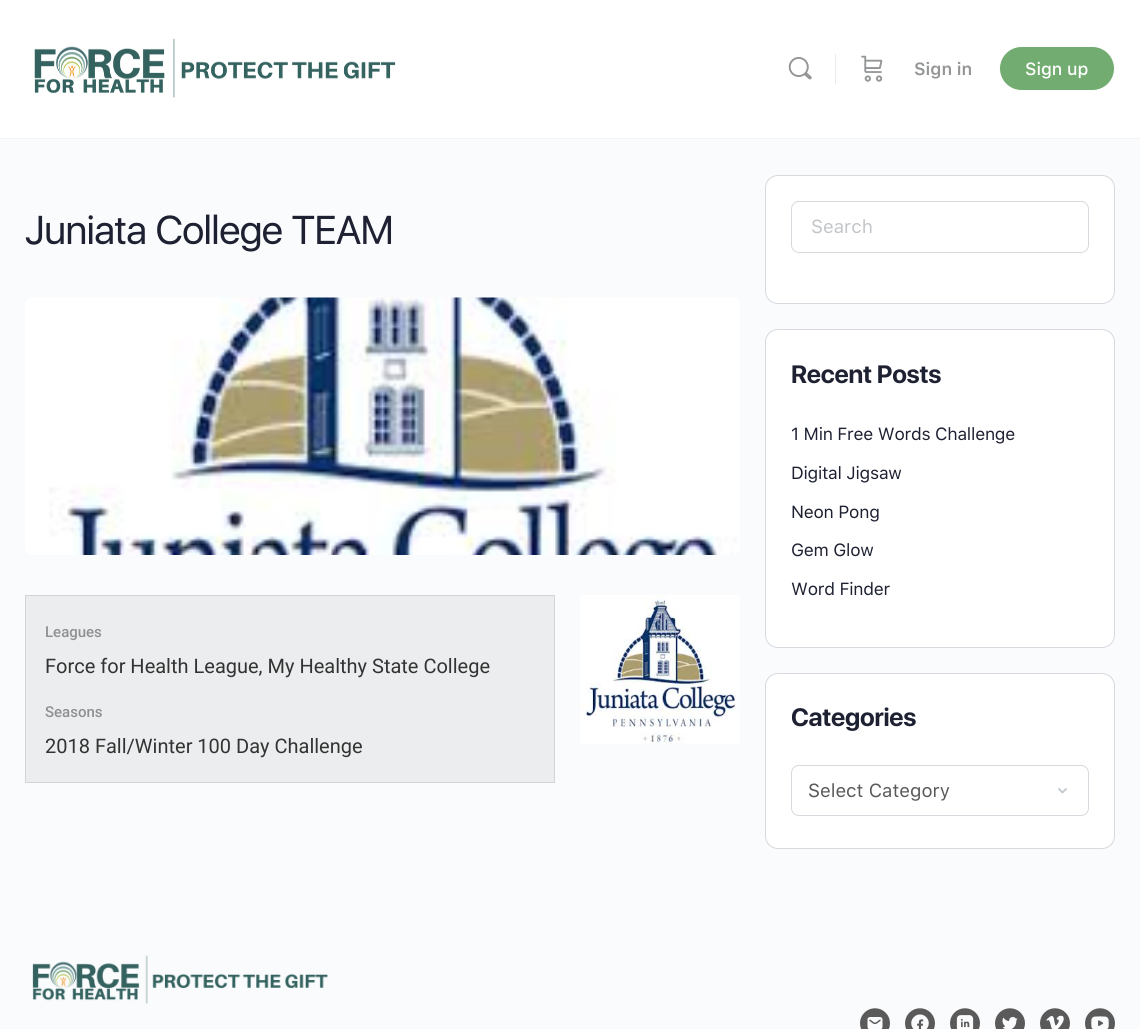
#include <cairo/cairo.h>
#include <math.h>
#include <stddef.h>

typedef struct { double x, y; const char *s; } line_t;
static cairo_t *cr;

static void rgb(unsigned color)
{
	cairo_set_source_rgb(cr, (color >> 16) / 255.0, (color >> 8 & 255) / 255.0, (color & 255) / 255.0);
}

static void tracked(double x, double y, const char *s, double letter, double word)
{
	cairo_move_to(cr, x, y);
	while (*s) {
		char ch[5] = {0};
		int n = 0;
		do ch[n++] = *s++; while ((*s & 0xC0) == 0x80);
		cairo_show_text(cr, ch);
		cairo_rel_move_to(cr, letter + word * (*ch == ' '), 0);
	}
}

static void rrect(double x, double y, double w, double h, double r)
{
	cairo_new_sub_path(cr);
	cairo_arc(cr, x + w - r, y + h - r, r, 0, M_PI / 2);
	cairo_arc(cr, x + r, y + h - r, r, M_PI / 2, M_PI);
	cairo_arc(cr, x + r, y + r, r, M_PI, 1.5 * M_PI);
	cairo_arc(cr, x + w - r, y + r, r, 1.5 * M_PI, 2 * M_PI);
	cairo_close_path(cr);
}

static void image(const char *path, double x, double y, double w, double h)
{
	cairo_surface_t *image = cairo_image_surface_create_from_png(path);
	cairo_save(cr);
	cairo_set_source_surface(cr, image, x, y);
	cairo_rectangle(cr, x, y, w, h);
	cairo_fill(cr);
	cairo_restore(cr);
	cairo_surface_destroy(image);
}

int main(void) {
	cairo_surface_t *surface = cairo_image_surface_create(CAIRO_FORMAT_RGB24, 1140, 1029);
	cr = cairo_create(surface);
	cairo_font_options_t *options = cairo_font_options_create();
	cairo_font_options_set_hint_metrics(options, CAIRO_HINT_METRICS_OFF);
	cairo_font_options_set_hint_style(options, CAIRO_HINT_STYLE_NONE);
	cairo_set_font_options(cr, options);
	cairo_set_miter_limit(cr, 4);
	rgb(0xfafbfd);
	cairo_paint(cr);
	rgb(0xf2f3f6);
	cairo_rectangle(cr, 0, 138, 1140, 1);
	cairo_fill(cr);
	rgb(0xffffff);
	cairo_rectangle(cr, 0, 0, 1140, 138);
	cairo_fill(cr);
	image("img/1.png", 34, 38, 362, 60);
	image("img/2.png", 788, 57, 24, 23);
	rgb(0xe9eaea);
	cairo_rectangle(cr, 835, 54, 1, 30);
	cairo_fill(cr);
	image("img/3.png", 861, 55, 22, 27);
	rgb(0x72ac70);
	rrect(999.5, 46.5, 115, 44, 22);
	cairo_fill_preserve(cr);
	rgb(0xffffff);
	cairo_set_line_width(cr, 1);
	cairo_stroke(cr);
	image("img/4.png", 25, 297, 715, 258);
	rgb(0xecedee);
	cairo_rectangle(cr, 25.5, 595.5, 529, 187);
	cairo_fill_preserve(cr);
	rgb(0xd2d3d4);
	cairo_stroke(cr);
	image("img/5.png", 580, 595, 160, 149);
	rgb(0xffffff);
	rrect(765.5, 175.5, 349, 128, 12.5);
	cairo_fill_preserve(cr);
	rgb(0xd6d9dd);
	cairo_stroke(cr);
	rrect(791.5, 201.5, 297, 51, 7.5);
	cairo_stroke(cr);
	rgb(0xffffff);
	rrect(765.5, 329.5, 349, 318, 12.5);
	cairo_fill_preserve(cr);
	rgb(0xd6d9dd);
	cairo_stroke(cr);
	rgb(0xffffff);
	rrect(765.5, 673.5, 349, 175, 12.5);
	cairo_fill_preserve(cr);
	rgb(0xd6d9dd);
	cairo_stroke(cr);
	cairo_new_path(cr);
	cairo_move_to(cr, 1066, 789);
	cairo_line_to(cr, 1062.5, 792.5);
	cairo_line_to(cr, 1059, 789);
	rgb(0xc4cad1);
	cairo_set_line_width(cr, 1.9);
	cairo_set_line_cap(cr, CAIRO_LINE_CAP_ROUND);
	cairo_set_line_join(cr, CAIRO_LINE_JOIN_ROUND);
	cairo_stroke(cr);
	rrect(791.5, 765.5, 297, 50, 7.5);
	rgb(0xd6d9dd);
	cairo_set_line_width(cr, 1);
	cairo_set_line_cap(cr, CAIRO_LINE_CAP_BUTT);
	cairo_set_line_join(cr, CAIRO_LINE_JOIN_MITER);
	cairo_stroke(cr);
	image("img/6.png", 32, 955, 296, 49);
	image("img/7.png", 860, 1008, 30, 21);
	image("img/8.png", 905, 1008, 30, 21);
	image("img/9.png", 950, 1008, 30, 21);
	image("img/10.png", 995, 1008, 30, 21);
	image("img/11.png", 1040, 1008, 30, 21);
	image("img/12.png", 1085, 1008, 30, 21);
	cairo_select_font_face(cr, "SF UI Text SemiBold", CAIRO_FONT_SLANT_NORMAL, CAIRO_FONT_WEIGHT_NORMAL);
	cairo_set_font_size(cr, 17.5);
	rgb(0x939597);
	cairo_move_to(cr, 914, 75);
	cairo_show_text(cr, "Sign in");
	cairo_select_font_face(cr, "SF UI Text Medium", CAIRO_FONT_SLANT_NORMAL, CAIRO_FONT_WEIGHT_NORMAL);
	rgb(0xffffff);
	cairo_move_to(cr, 1025, 75);
	cairo_show_text(cr, "Sign up");
	cairo_select_font_face(cr, "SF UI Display", CAIRO_FONT_SLANT_NORMAL, CAIRO_FONT_WEIGHT_NORMAL);
	cairo_set_font_size(cr, 40);
	rgb(0x1e2132);
	tracked(25, 244, "Juniata College TEAM", -0.6, 0);
	cairo_select_font_face(cr, "Roboto Medium", CAIRO_FONT_SLANT_NORMAL, CAIRO_FONT_WEIGHT_NORMAL);
	cairo_set_font_size(cr, 15);
	rgb(0x909091);
	cairo_move_to(cr, 45, 637);
	cairo_show_text(cr, "Leagues");
	cairo_select_font_face(cr, "Roboto", CAIRO_FONT_SLANT_NORMAL, CAIRO_FONT_WEIGHT_NORMAL);
	cairo_set_font_size(cr, 20);
	rgb(0x333333);
	cairo_move_to(cr, 45, 673);
	cairo_show_text(cr, "Force for Health League, My Healthy State College");
	cairo_select_font_face(cr, "Roboto Medium", CAIRO_FONT_SLANT_NORMAL, CAIRO_FONT_WEIGHT_NORMAL);
	cairo_set_font_size(cr, 15);
	rgb(0x909091);
	cairo_move_to(cr, 45, 717);
	cairo_show_text(cr, "Seasons");
	cairo_select_font_face(cr, "Roboto", CAIRO_FONT_SLANT_NORMAL, CAIRO_FONT_WEIGHT_NORMAL);
	cairo_set_font_size(cr, 20);
	rgb(0x333333);
	cairo_move_to(cr, 45, 753);
	cairo_show_text(cr, "2018 Fall/Winter 100 Day Challenge");
	cairo_select_font_face(cr, "SF UI Text", CAIRO_FONT_SLANT_NORMAL, CAIRO_FONT_WEIGHT_NORMAL);
	cairo_set_font_size(cr, 18.75);
	rgb(0xc3c6c9);
	cairo_move_to(cr, 811, 233);
	cairo_show_text(cr, "Search");
	cairo_select_font_face(cr, "SF UI Display", CAIRO_FONT_SLANT_NORMAL, CAIRO_FONT_WEIGHT_BOLD);
	cairo_set_font_size(cr, 25);
	rgb(0x1e2132);
	tracked(791, 383, "Recent Posts", -0.25, 0);
	cairo_select_font_face(cr, "SF UI Text", CAIRO_FONT_SLANT_NORMAL, CAIRO_FONT_WEIGHT_NORMAL);
	cairo_set_font_size(cr, 17.5);
	{
		static const line_t items[] = {
			{791, 440, "1 Min Free Words Challenge"},
			{791, 479, "Digital Jigsaw"},
			{791, 518, "Neon Pong"},
			{791, 556, "Gem Glow"},
			{791, 595, "Word Finder"},
		};
		for (size_t i = 0; i < sizeof items / sizeof *items; i++) {
			tracked(items[i].x, items[i].y, items[i].s, -0.25, 0);
		}
	}
	cairo_select_font_face(cr, "SF UI Display", CAIRO_FONT_SLANT_NORMAL, CAIRO_FONT_WEIGHT_BOLD);
	cairo_set_font_size(cr, 25);
	tracked(791, 726, "Categories", -0.25, 0);
	cairo_select_font_face(cr, "SF UI Text", CAIRO_FONT_SLANT_NORMAL, CAIRO_FONT_WEIGHT_NORMAL);
	cairo_set_font_size(cr, 18.75);
	rgb(0x5a5a5a);
	cairo_move_to(cr, 808, 797);
	cairo_show_text(cr, "Select Category");
	cairo_surface_write_to_png(surface, "page.png");
	cairo_font_options_destroy(options);
	cairo_destroy(cr);
	cairo_surface_destroy(surface);
	return 0;
}
